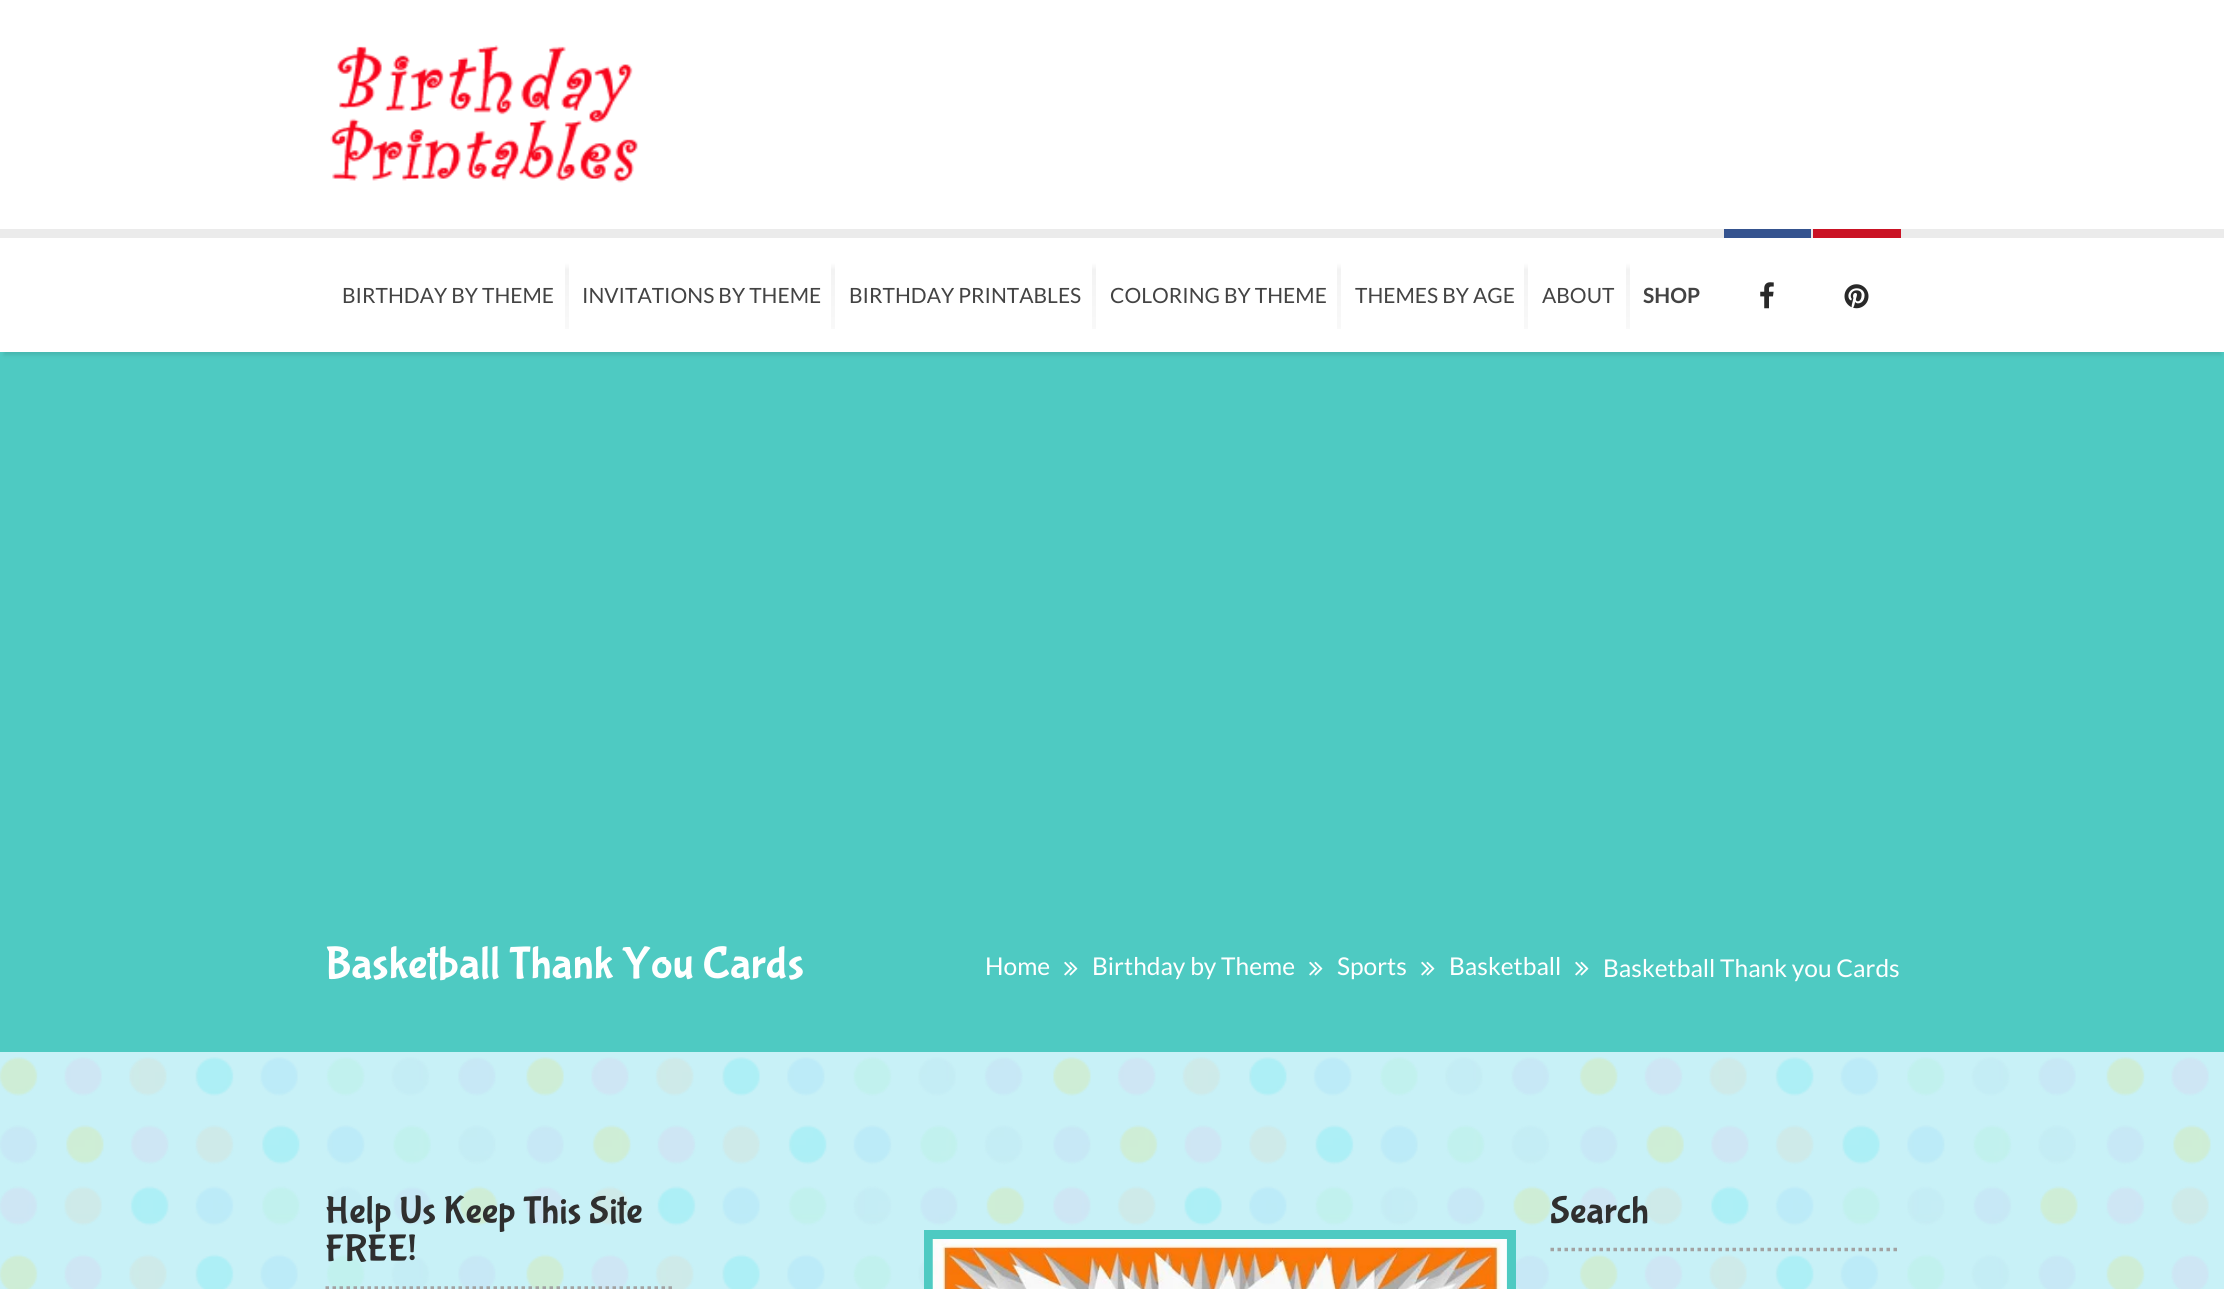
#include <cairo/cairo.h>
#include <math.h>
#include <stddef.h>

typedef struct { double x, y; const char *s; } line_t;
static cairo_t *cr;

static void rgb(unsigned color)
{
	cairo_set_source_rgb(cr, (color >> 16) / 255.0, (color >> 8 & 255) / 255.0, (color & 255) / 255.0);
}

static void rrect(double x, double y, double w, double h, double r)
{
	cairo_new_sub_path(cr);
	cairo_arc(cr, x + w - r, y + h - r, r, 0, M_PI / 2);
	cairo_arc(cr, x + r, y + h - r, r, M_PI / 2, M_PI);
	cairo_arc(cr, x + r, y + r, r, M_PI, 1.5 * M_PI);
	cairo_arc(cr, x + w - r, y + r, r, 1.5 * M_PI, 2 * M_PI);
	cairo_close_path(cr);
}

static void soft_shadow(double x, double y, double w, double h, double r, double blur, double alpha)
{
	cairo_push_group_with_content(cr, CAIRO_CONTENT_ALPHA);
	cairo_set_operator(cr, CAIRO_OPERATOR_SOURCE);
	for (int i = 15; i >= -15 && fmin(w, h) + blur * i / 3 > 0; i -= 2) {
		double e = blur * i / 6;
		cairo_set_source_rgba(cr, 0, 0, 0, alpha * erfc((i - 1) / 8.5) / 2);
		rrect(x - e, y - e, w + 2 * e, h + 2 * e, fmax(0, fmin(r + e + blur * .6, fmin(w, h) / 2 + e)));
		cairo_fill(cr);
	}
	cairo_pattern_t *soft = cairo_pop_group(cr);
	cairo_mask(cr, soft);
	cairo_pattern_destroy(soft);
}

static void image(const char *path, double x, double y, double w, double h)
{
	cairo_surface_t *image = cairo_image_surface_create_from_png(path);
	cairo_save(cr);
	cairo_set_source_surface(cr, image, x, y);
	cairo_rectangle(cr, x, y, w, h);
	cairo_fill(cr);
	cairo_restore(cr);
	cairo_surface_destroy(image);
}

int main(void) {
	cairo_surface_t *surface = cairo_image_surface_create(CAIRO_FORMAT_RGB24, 2224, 1289);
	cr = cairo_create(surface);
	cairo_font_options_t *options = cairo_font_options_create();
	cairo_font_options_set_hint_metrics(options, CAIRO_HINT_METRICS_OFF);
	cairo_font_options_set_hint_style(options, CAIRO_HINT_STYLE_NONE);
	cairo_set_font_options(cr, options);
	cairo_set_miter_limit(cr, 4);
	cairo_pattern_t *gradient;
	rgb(0xc8f1f7);
	cairo_paint(cr);
	image("img/1.png", 0, 1057, 2211, 232);
	rgb(0xffffff);
	cairo_rectangle(cr, 0, 0, 2224, 229);
	cairo_fill(cr);
	image("img/2.png", 330, 45, 308, 138);
	rgb(0x4ecac2);
	cairo_rectangle(cr, 0, 352, 2224, 700);
	cairo_fill(cr);
	rgb(0x000000);
	soft_shadow(4, 240, 2217, 115, 0, 2, 0.1);
	rgb(0xffffff);
	cairo_rectangle(cr, 0, 238, 2224, 114);
	cairo_fill(cr);
	rgb(0xebebeb);
	cairo_rectangle(cr, 0, 229, 2224, 9);
	cairo_fill(cr);
	gradient = cairo_pattern_create_linear(567, 396, 567, 263);
	cairo_pattern_add_color_stop_rgba(gradient, 0, 1, 1, 1, 1);
	cairo_pattern_add_color_stop_rgba(gradient, 0.95, 0.953, 0.953, 0.953, 1);
	cairo_pattern_add_color_stop_rgba(gradient, 1, 1, 1, 1, 1);
	cairo_set_source(cr, gradient);
	cairo_pattern_destroy(gradient);
	cairo_rectangle(cr, 565, 263, 4, 66);
	cairo_fill(cr);
	gradient = cairo_pattern_create_linear(833, 396, 833, 263);
	cairo_pattern_add_color_stop_rgba(gradient, 0, 1, 1, 1, 1);
	cairo_pattern_add_color_stop_rgba(gradient, 0.95, 0.953, 0.953, 0.953, 1);
	cairo_pattern_add_color_stop_rgba(gradient, 1, 1, 1, 1, 1);
	cairo_set_source(cr, gradient);
	cairo_pattern_destroy(gradient);
	cairo_rectangle(cr, 831, 263, 4, 66);
	cairo_fill(cr);
	gradient = cairo_pattern_create_linear(1094, 396, 1094, 263);
	cairo_pattern_add_color_stop_rgba(gradient, 0, 1, 1, 1, 1);
	cairo_pattern_add_color_stop_rgba(gradient, 0.95, 0.953, 0.953, 0.953, 1);
	cairo_pattern_add_color_stop_rgba(gradient, 1, 1, 1, 1, 1);
	cairo_set_source(cr, gradient);
	cairo_pattern_destroy(gradient);
	cairo_rectangle(cr, 1092, 263, 4, 66);
	cairo_fill(cr);
	gradient = cairo_pattern_create_linear(1339, 396, 1339, 263);
	cairo_pattern_add_color_stop_rgba(gradient, 0, 1, 1, 1, 1);
	cairo_pattern_add_color_stop_rgba(gradient, 0.95, 0.953, 0.953, 0.953, 1);
	cairo_pattern_add_color_stop_rgba(gradient, 1, 1, 1, 1, 1);
	cairo_set_source(cr, gradient);
	cairo_pattern_destroy(gradient);
	cairo_rectangle(cr, 1337, 263, 4, 66);
	cairo_fill(cr);
	gradient = cairo_pattern_create_linear(1526, 396, 1526, 263);
	cairo_pattern_add_color_stop_rgba(gradient, 0, 1, 1, 1, 1);
	cairo_pattern_add_color_stop_rgba(gradient, 0.95, 0.953, 0.953, 0.953, 1);
	cairo_pattern_add_color_stop_rgba(gradient, 1, 1, 1, 1, 1);
	cairo_set_source(cr, gradient);
	cairo_pattern_destroy(gradient);
	cairo_rectangle(cr, 1524, 263, 4, 66);
	cairo_fill(cr);
	gradient = cairo_pattern_create_linear(1628, 396, 1628, 263);
	cairo_pattern_add_color_stop_rgba(gradient, 0, 1, 1, 1, 1);
	cairo_pattern_add_color_stop_rgba(gradient, 0.95, 0.953, 0.953, 0.953, 1);
	cairo_pattern_add_color_stop_rgba(gradient, 1, 1, 1, 1, 1);
	cairo_set_source(cr, gradient);
	cairo_pattern_destroy(gradient);
	cairo_rectangle(cr, 1626, 263, 4, 66);
	cairo_fill(cr);
	rgb(0x35538f);
	cairo_rectangle(cr, 1724, 229, 87, 9);
	cairo_fill(cr);
	image("img/3.png", 1760, 282, 14, 27);
	rgb(0xca1325);
	cairo_rectangle(cr, 1813, 229, 88, 9);
	cairo_fill(cr);
	image("img/4.png", 1844, 284, 25, 25);
	image("img/5.png", 1064, 961, 14, 15);
	image("img/5.png", 1309, 961, 14, 15);
	image("img/5.png", 1421, 961, 14, 15);
	image("img/5.png", 1575, 961, 14, 15);
	cairo_new_path(cr);
	cairo_move_to(cr, 325.5, 1288);
	cairo_line_to(cr, 675.5, 1288);
	rgb(0xa2a2a2);
	cairo_set_line_width(cr, 3.5);
	cairo_set_dash(cr, (double[]){3.5, 3.5}, 2, 0);
	cairo_stroke(cr);
	cairo_new_path(cr);
	cairo_move_to(cr, 1550.5, 1249.5);
	cairo_line_to(cr, 1900.5, 1249.5);
	cairo_stroke(cr);
	cairo_rectangle(cr, 928.5, 1234.5, 583, 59);
	rgb(0x4ecac2);
	cairo_set_line_width(cr, 9);
	cairo_set_dash(cr, NULL, 0, 0);
	cairo_stroke(cr);
	image("img/6.png", 932, 1239, 575, 50);
	cairo_select_font_face(cr, "Lato", CAIRO_FONT_SLANT_NORMAL, CAIRO_FONT_WEIGHT_NORMAL);
	cairo_set_font_size(cr, 21);
	rgb(0x434343);
	{
		static const line_t items[] = {
			{342, 303, "BIRTHDAY BY THEME"},
			{582, 303, "INVITATIONS BY THEME"},
			{849, 303, "BIRTHDAY PRINTABLES"},
			{1110, 303, "COLORING BY THEME"},
			{1355, 303, "THEMES BY AGE"},
			{1542, 303, "ABOUT"},
		};
		for (size_t i = 0; i < sizeof items / sizeof *items; i++) {
			cairo_move_to(cr, items[i].x, items[i].y);
			cairo_show_text(cr, items[i].s);
		}
	}
	cairo_select_font_face(cr, "Lato", CAIRO_FONT_SLANT_NORMAL, CAIRO_FONT_WEIGHT_BOLD);
	cairo_move_to(cr, 1643, 303);
	cairo_show_text(cr, "SHOP");
	cairo_select_font_face(cr, "Bubblegum Sans", CAIRO_FONT_SLANT_NORMAL, CAIRO_FONT_WEIGHT_NORMAL);
	cairo_set_font_size(cr, 45.5);
	rgb(0xffffff);
	cairo_move_to(cr, 325, 977);
	cairo_show_text(cr, "Basketball Thank You Cards");
	cairo_select_font_face(cr, "Lato", CAIRO_FONT_SLANT_NORMAL, CAIRO_FONT_WEIGHT_NORMAL);
	cairo_set_font_size(cr, 24.5);
	{
		static const line_t items[] = {
			{985, 975, "Home"},
			{1092, 975, "Birthday by Theme"},
			{1337, 975, "Sports"},
			{1449, 975, "Basketball"},
			{1603, 977, "Basketball Thank you Cards"},
		};
		for (size_t i = 0; i < sizeof items / sizeof *items; i++) {
			cairo_move_to(cr, items[i].x, items[i].y);
			cairo_show_text(cr, items[i].s);
		}
	}
	cairo_select_font_face(cr, "Bubblegum Sans", CAIRO_FONT_SLANT_NORMAL, CAIRO_FONT_WEIGHT_NORMAL);
	cairo_set_font_size(cr, 38.5);
	rgb(0x2f2f2f);
	{
		static const line_t items[] = {
			{325, 1222, "Help Us Keep This Site"},
			{325, 1260, "FREE!"},
			{1550, 1222, "Search"},
		};
		for (size_t i = 0; i < sizeof items / sizeof *items; i++) {
			cairo_move_to(cr, items[i].x, items[i].y);
			cairo_show_text(cr, items[i].s);
		}
	}
	cairo_surface_write_to_png(surface, "page.png");
	cairo_font_options_destroy(options);
	cairo_destroy(cr);
	cairo_surface_destroy(surface);
	return 0;
}
